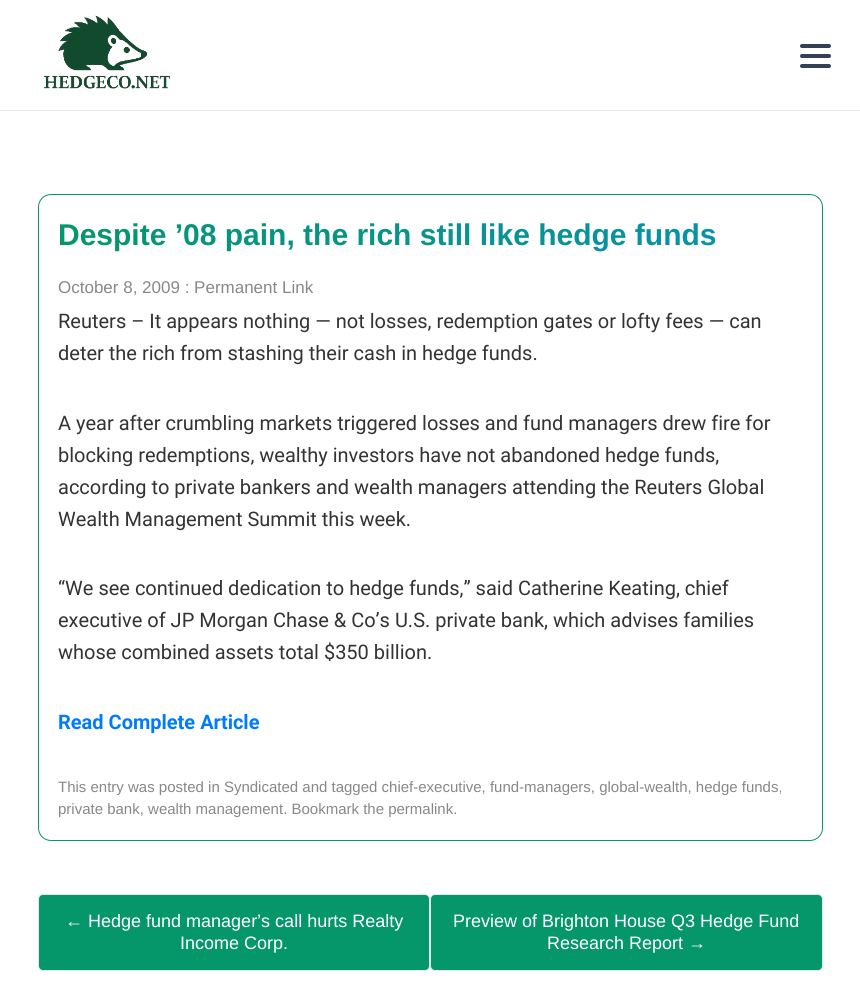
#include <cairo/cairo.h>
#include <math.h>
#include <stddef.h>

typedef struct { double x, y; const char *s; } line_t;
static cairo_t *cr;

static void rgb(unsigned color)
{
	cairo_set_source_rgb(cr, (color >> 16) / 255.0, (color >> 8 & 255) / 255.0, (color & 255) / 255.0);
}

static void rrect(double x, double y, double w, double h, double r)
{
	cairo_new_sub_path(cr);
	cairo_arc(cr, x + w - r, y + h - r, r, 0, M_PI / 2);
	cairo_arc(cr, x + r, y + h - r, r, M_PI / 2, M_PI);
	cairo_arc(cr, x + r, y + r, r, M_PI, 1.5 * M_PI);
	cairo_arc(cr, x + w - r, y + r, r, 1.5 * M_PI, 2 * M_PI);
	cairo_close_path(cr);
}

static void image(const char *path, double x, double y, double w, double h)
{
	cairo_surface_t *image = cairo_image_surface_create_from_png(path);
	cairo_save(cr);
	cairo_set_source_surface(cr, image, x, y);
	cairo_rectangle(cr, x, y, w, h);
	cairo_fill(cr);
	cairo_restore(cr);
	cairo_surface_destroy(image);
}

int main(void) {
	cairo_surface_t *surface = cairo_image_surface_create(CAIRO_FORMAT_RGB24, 860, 998);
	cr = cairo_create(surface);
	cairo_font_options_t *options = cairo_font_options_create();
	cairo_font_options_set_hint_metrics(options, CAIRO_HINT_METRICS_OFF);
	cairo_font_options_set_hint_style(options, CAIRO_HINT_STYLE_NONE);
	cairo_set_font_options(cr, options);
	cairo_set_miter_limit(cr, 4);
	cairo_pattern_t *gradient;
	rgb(0xffffff);
	cairo_paint(cr);
	rgb(0xe2e8f0);
	cairo_rectangle(cr, 0, 110, 860, 1);
	cairo_fill(cr);
	image("img/1.png", 44, 15, 126, 74);
	rgb(0x334155);
	rrect(800, 44, 31, 4, 2);
	cairo_fill(cr);
	rrect(800, 54, 31, 4, 2);
	cairo_fill(cr);
	rrect(800, 64, 31, 4, 2);
	cairo_fill(cr);
	rrect(38.5, 194.5, 784, 646, 12.5);
	rgb(0x059669);
	cairo_set_line_width(cr, 1);
	cairo_stroke(cr);
	rrect(38.5, 894.5, 391, 76, 4.5);
	cairo_fill_preserve(cr);
	rgb(0xe2e8f0);
	cairo_stroke(cr);
	rgb(0x059669);
	rrect(430.5, 894.5, 392, 76, 4.5);
	cairo_fill_preserve(cr);
	rgb(0xe2e8f0);
	cairo_stroke(cr);
	cairo_select_font_face(cr, "Liberation Sans", CAIRO_FONT_SLANT_NORMAL, CAIRO_FONT_WEIGHT_BOLD);
	cairo_set_font_size(cr, 30);
	gradient = cairo_pattern_create_linear(233, 38, 627, 431);
	cairo_pattern_add_color_stop_rgba(gradient, 0, 0.02, 0.588, 0.412, 1);
	cairo_pattern_add_color_stop_rgba(gradient, 1, 0.031, 0.569, 0.698, 1);
	cairo_set_source(cr, gradient);
	cairo_pattern_destroy(gradient);
	cairo_move_to(cr, 58, 245);
	cairo_show_text(cr, "Despite ’08 pain, the rich still like hedge funds");
	cairo_select_font_face(cr, "Liberation Sans", CAIRO_FONT_SLANT_NORMAL, CAIRO_FONT_WEIGHT_NORMAL);
	cairo_set_font_size(cr, 17);
	rgb(0x888888);
	cairo_move_to(cr, 58, 293);
	cairo_show_text(cr, "October 8, 2009 : Permanent Link");
	cairo_select_font_face(cr, "Roboto", CAIRO_FONT_SLANT_NORMAL, CAIRO_FONT_WEIGHT_NORMAL);
	cairo_set_font_size(cr, 20);
	rgb(0x333333);
	{
		static const line_t items[] = {
			{58, 328, "Reuters – It appears nothing — not losses, redemption gates or lofty fees — can"},
			{58, 360, "deter the rich from stashing their cash in hedge funds."},
			{58, 430, "A year after crumbling markets triggered losses and fund managers drew fire for"},
			{58, 462, "blocking redemptions, wealthy investors have not abandoned hedge funds,"},
			{58, 494, "according to private bankers and wealth managers attending the Reuters Global"},
			{58, 526, "Wealth Management Summit this week."},
			{58, 595, "“We see continued dedication to hedge funds,” said Catherine Keating, chief"},
			{58, 627, "executive of JP Morgan Chase & Co’s U.S. private bank, which advises families"},
			{58, 659, "whose combined assets total $350 billion."},
		};
		for (size_t i = 0; i < sizeof items / sizeof *items; i++) {
			cairo_move_to(cr, items[i].x, items[i].y);
			cairo_show_text(cr, items[i].s);
		}
	}
	cairo_select_font_face(cr, "Roboto", CAIRO_FONT_SLANT_NORMAL, CAIRO_FONT_WEIGHT_BOLD);
	rgb(0x007bff);
	cairo_move_to(cr, 58, 729);
	cairo_show_text(cr, "Read Complete Article");
	cairo_select_font_face(cr, "Liberation Sans", CAIRO_FONT_SLANT_NORMAL, CAIRO_FONT_WEIGHT_NORMAL);
	cairo_set_font_size(cr, 15);
	rgb(0x888888);
	cairo_move_to(cr, 58, 792);
	cairo_show_text(cr, "This entry was posted in Syndicated and tagged chief-executive, fund-managers, global-wealth, hedge funds,");
	cairo_move_to(cr, 58, 814);
	cairo_show_text(cr, "private bank, wealth management. Bookmark the permalink.");
	cairo_set_font_size(cr, 18);
	rgb(0xffffff);
	{
		static const line_t items[] = {
			{65, 927, "← Hedge fund manager’s call hurts Realty"},
			{180, 949, "Income Corp."},
			{453, 927, "Preview of Brighton House Q3 Hedge Fund"},
			{547, 949, "Research Report →"},
		};
		for (size_t i = 0; i < sizeof items / sizeof *items; i++) {
			cairo_move_to(cr, items[i].x, items[i].y);
			cairo_show_text(cr, items[i].s);
		}
	}
	cairo_surface_write_to_png(surface, "page.png");
	cairo_font_options_destroy(options);
	cairo_destroy(cr);
	cairo_surface_destroy(surface);
	return 0;
}
